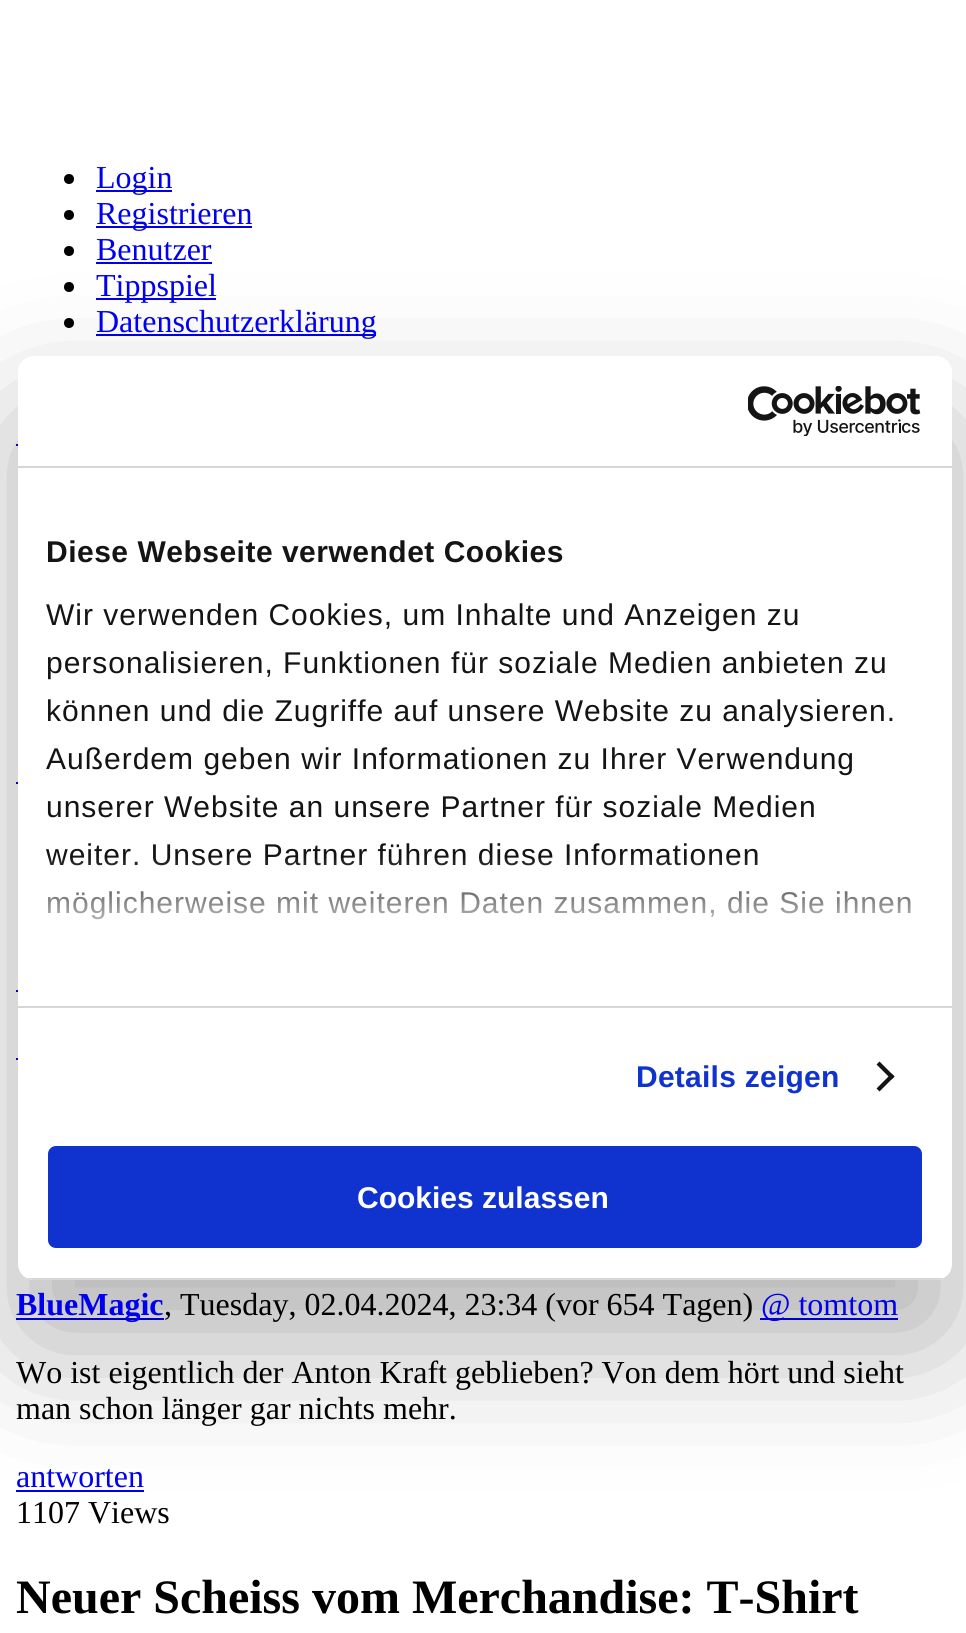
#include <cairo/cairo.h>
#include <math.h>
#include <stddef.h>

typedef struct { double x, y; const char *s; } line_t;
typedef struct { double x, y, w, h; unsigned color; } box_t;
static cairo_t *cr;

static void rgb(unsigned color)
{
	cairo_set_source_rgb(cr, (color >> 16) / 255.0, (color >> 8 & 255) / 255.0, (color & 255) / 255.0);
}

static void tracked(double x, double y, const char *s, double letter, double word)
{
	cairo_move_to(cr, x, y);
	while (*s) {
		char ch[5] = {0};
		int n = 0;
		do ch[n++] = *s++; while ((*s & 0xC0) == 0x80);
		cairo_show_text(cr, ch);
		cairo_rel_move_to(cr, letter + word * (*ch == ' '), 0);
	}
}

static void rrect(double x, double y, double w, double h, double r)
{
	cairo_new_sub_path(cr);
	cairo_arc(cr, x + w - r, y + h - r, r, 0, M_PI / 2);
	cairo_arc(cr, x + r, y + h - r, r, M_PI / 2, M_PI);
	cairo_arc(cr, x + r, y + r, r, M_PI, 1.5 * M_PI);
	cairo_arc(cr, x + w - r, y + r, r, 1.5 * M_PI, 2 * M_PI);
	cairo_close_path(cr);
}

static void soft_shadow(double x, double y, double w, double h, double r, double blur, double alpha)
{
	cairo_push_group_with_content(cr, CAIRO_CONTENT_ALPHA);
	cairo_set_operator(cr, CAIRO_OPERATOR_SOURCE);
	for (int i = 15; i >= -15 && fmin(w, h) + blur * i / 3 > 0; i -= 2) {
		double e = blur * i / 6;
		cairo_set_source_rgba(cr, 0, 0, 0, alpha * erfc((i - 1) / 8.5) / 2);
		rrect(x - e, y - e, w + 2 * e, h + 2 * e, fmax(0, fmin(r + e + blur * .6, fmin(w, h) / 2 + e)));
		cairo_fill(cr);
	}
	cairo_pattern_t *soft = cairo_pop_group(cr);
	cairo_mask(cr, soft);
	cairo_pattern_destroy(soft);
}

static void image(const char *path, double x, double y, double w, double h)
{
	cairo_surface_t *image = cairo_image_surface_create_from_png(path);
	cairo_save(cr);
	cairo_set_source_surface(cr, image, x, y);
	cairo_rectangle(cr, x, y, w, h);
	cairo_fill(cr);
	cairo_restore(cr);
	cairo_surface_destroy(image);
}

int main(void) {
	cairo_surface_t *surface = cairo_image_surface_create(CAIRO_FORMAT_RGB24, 966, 1633);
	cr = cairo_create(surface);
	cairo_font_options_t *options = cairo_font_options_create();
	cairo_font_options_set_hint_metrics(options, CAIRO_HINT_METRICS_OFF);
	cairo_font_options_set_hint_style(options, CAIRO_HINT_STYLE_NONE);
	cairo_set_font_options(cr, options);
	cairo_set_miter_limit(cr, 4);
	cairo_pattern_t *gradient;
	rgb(0xffffff);
	cairo_paint(cr);
	rgb(0x000000);
	cairo_arc(cr, 69, 179, 5, 0, 2 * M_PI);
	cairo_fill(cr);
	rgb(0x0000ee);
	cairo_rectangle(cr, 96, 190, 76, 2);
	cairo_fill(cr);
	rgb(0x000000);
	cairo_arc(cr, 69, 215, 5, 0, 2 * M_PI);
	cairo_fill(cr);
	rgb(0x0000ee);
	cairo_rectangle(cr, 96, 226, 156, 2);
	cairo_fill(cr);
	rgb(0x000000);
	cairo_arc(cr, 69, 251, 5, 0, 2 * M_PI);
	cairo_fill(cr);
	rgb(0x0000ee);
	cairo_rectangle(cr, 96, 262, 116, 2);
	cairo_fill(cr);
	rgb(0x000000);
	cairo_arc(cr, 69, 287, 5, 0, 2 * M_PI);
	cairo_fill(cr);
	rgb(0x0000ee);
	cairo_rectangle(cr, 96, 298, 120, 2);
	cairo_fill(cr);
	rgb(0x000000);
	cairo_arc(cr, 69, 323, 5, 0, 2 * M_PI);
	cairo_fill(cr);
	{
		static const box_t items[] = {
			{96, 334, 280, 2, 0x0000ee},
			{16, 444, 2, 2, 0x0000ee},
			{16, 782, 2, 2, 0x0000ee},
			{16, 990, 2, 2, 0x0000ee},
			{16, 1058, 2, 2, 0x0000ee},
			{16, 1318, 148, 2, 0x0000ee},
			{760, 1318, 138, 2, 0x0000ee},
			{16, 1490, 128, 2, 0x0000ee},
		};
		for (size_t i = 0; i < sizeof items / sizeof *items; i++) {
			rgb(items[i].color);
			cairo_rectangle(cr, items[i].x, items[i].y, items[i].w, items[i].h);
			cairo_fill(cr);
		}
	}
	rgb(0x000000);
	soft_shadow(18, 420, 934, 924, 16, 68, 0.3);
	rgb(0xffffff);
	rrect(18, 356, 934, 924, 16);
	cairo_fill(cr);
	rgb(0xd6d6d6);
	cairo_rectangle(cr, 18, 466, 934, 2);
	cairo_fill(cr);
	image("img/1.png", 748, 386, 173, 50);
	cairo_rectangle(cr, 18, 1006, 934, 2);
	cairo_fill(cr);
	rgb(0x141414);
	cairo_new_path(cr);
	cairo_move_to(cr, 879.5, 1061.5);
	cairo_line_to(cr, 894.5, 1076.5);
	cairo_line_to(cr, 891.5, 1079.5);
	cairo_line_to(cr, 876.5, 1064.5);
	cairo_close_path(cr);
	cairo_fill(cr);
	cairo_new_path(cr);
	cairo_move_to(cr, 891.5, 1073.5);
	cairo_line_to(cr, 894.5, 1076.5);
	cairo_line_to(cr, 879.5, 1091.5);
	cairo_line_to(cr, 876.5, 1088.5);
	cairo_close_path(cr);
	cairo_fill(cr);
	cairo_save(cr);
	rrect(18, 356, 934, 924, 16);
	cairo_clip(cr);
	rgb(0xd6d6d6);
	cairo_rectangle(cr, 18, 1278, 934, 2);
	cairo_fill(cr);
	cairo_restore(cr);
	rgb(0x1032cf);
	rrect(50, 1148, 870, 98, 6);
	cairo_fill_preserve(cr);
	cairo_set_line_width(cr, 4);
	cairo_stroke(cr);
	cairo_select_font_face(cr, "Liberation Serif", CAIRO_FONT_SLANT_NORMAL, CAIRO_FONT_WEIGHT_NORMAL);
	cairo_set_font_size(cr, 32);
	rgb(0x0000ee);
	{
		static const line_t items[] = {
			{96, 188, "Login"},
			{96, 224, "Registrieren"},
			{96, 260, "Benutzer"},
			{96, 296, "Tippspiel"},
			{96, 332, "Datenschutzerklärung"},
		};
		for (size_t i = 0; i < sizeof items / sizeof *items; i++) {
			cairo_move_to(cr, items[i].x, items[i].y);
			cairo_show_text(cr, items[i].s);
		}
	}
	cairo_select_font_face(cr, "Liberation Sans", CAIRO_FONT_SLANT_NORMAL, CAIRO_FONT_WEIGHT_BOLD);
	cairo_set_font_size(cr, 30);
	rgb(0x141414);
	tracked(46, 562, "Diese Webseite verwendet Cookies", 0.5, 0);
	cairo_select_font_face(cr, "Liberation Sans", CAIRO_FONT_SLANT_NORMAL, CAIRO_FONT_WEIGHT_NORMAL);
	{
		static const line_t items[] = {
			{46, 625, "Wir verwenden Cookies, um Inhalte und Anzeigen zu"},
			{46, 673, "personalisieren, Funktionen für soziale Medien anbieten zu"},
			{46, 721, "können und die Zugriffe auf unsere Website zu analysieren."},
			{46, 769, "Außerdem geben wir Informationen zu Ihrer Verwendung"},
			{46, 817, "unserer Website an unsere Partner für soziale Medien"},
			{46, 865, "weiter. Unsere Partner führen diese Informationen"},
			{46, 913, "möglicherweise mit weiteren Daten zusammen, die Sie ihnen"},
		};
		for (size_t i = 0; i < sizeof items / sizeof *items; i++) {
			tracked(items[i].x, items[i].y, items[i].s, 1, 0);
		}
	}
	gradient = cairo_pattern_create_linear(471, 1006, 471, 856);
	cairo_pattern_add_color_stop_rgba(gradient, 0, 1, 1, 1, 1);
	cairo_pattern_add_color_stop_rgba(gradient, 0.5, 1, 1, 1, 0.8);
	cairo_pattern_add_color_stop_rgba(gradient, 1, 1, 1, 1, 0);
	cairo_set_source(cr, gradient);
	cairo_pattern_destroy(gradient);
	cairo_rectangle(cr, 48, 858, 863, 62);
	cairo_fill(cr);
	cairo_select_font_face(cr, "Liberation Sans", CAIRO_FONT_SLANT_NORMAL, CAIRO_FONT_WEIGHT_BOLD);
	rgb(0x1032cf);
	tracked(636, 1087, "Details zeigen", 0.25, 0);
	rgb(0xffffff);
	cairo_move_to(cr, 357, 1208);
	cairo_show_text(cr, "Cookies zulassen");
	cairo_select_font_face(cr, "Liberation Serif", CAIRO_FONT_SLANT_NORMAL, CAIRO_FONT_WEIGHT_BOLD);
	cairo_set_font_size(cr, 32);
	rgb(0x0000ee);
	cairo_move_to(cr, 16, 1315);
	cairo_show_text(cr, "BlueMagic");
	cairo_select_font_face(cr, "Liberation Serif", CAIRO_FONT_SLANT_NORMAL, CAIRO_FONT_WEIGHT_NORMAL);
	rgb(0x000000);
	cairo_move_to(cr, 164, 1315);
	cairo_show_text(cr, ", Tuesday, 02.04.2024, 23:34 (vor 654 Tagen)");
	rgb(0x0000ee);
	cairo_move_to(cr, 761, 1315);
	cairo_show_text(cr, "@ tomtom");
	rgb(0x000000);
	cairo_move_to(cr, 16, 1383);
	cairo_show_text(cr, "Wo ist eigentlich der Anton Kraft geblieben? Von dem hört und sieht");
	cairo_move_to(cr, 16, 1419);
	cairo_show_text(cr, "man schon länger gar nichts mehr.");
	rgb(0x0000ee);
	cairo_move_to(cr, 16, 1487);
	cairo_show_text(cr, "antworten");
	rgb(0x000000);
	cairo_move_to(cr, 16, 1523);
	cairo_show_text(cr, "1107 Views");
	cairo_select_font_face(cr, "Liberation Serif", CAIRO_FONT_SLANT_NORMAL, CAIRO_FONT_WEIGHT_BOLD);
	cairo_set_font_size(cr, 48);
	cairo_move_to(cr, 16, 1613);
	cairo_show_text(cr, "Neuer Scheiss vom Merchandise: T-Shirt");
	cairo_surface_write_to_png(surface, "page.png");
	cairo_font_options_destroy(options);
	cairo_destroy(cr);
	cairo_surface_destroy(surface);
	return 0;
}
